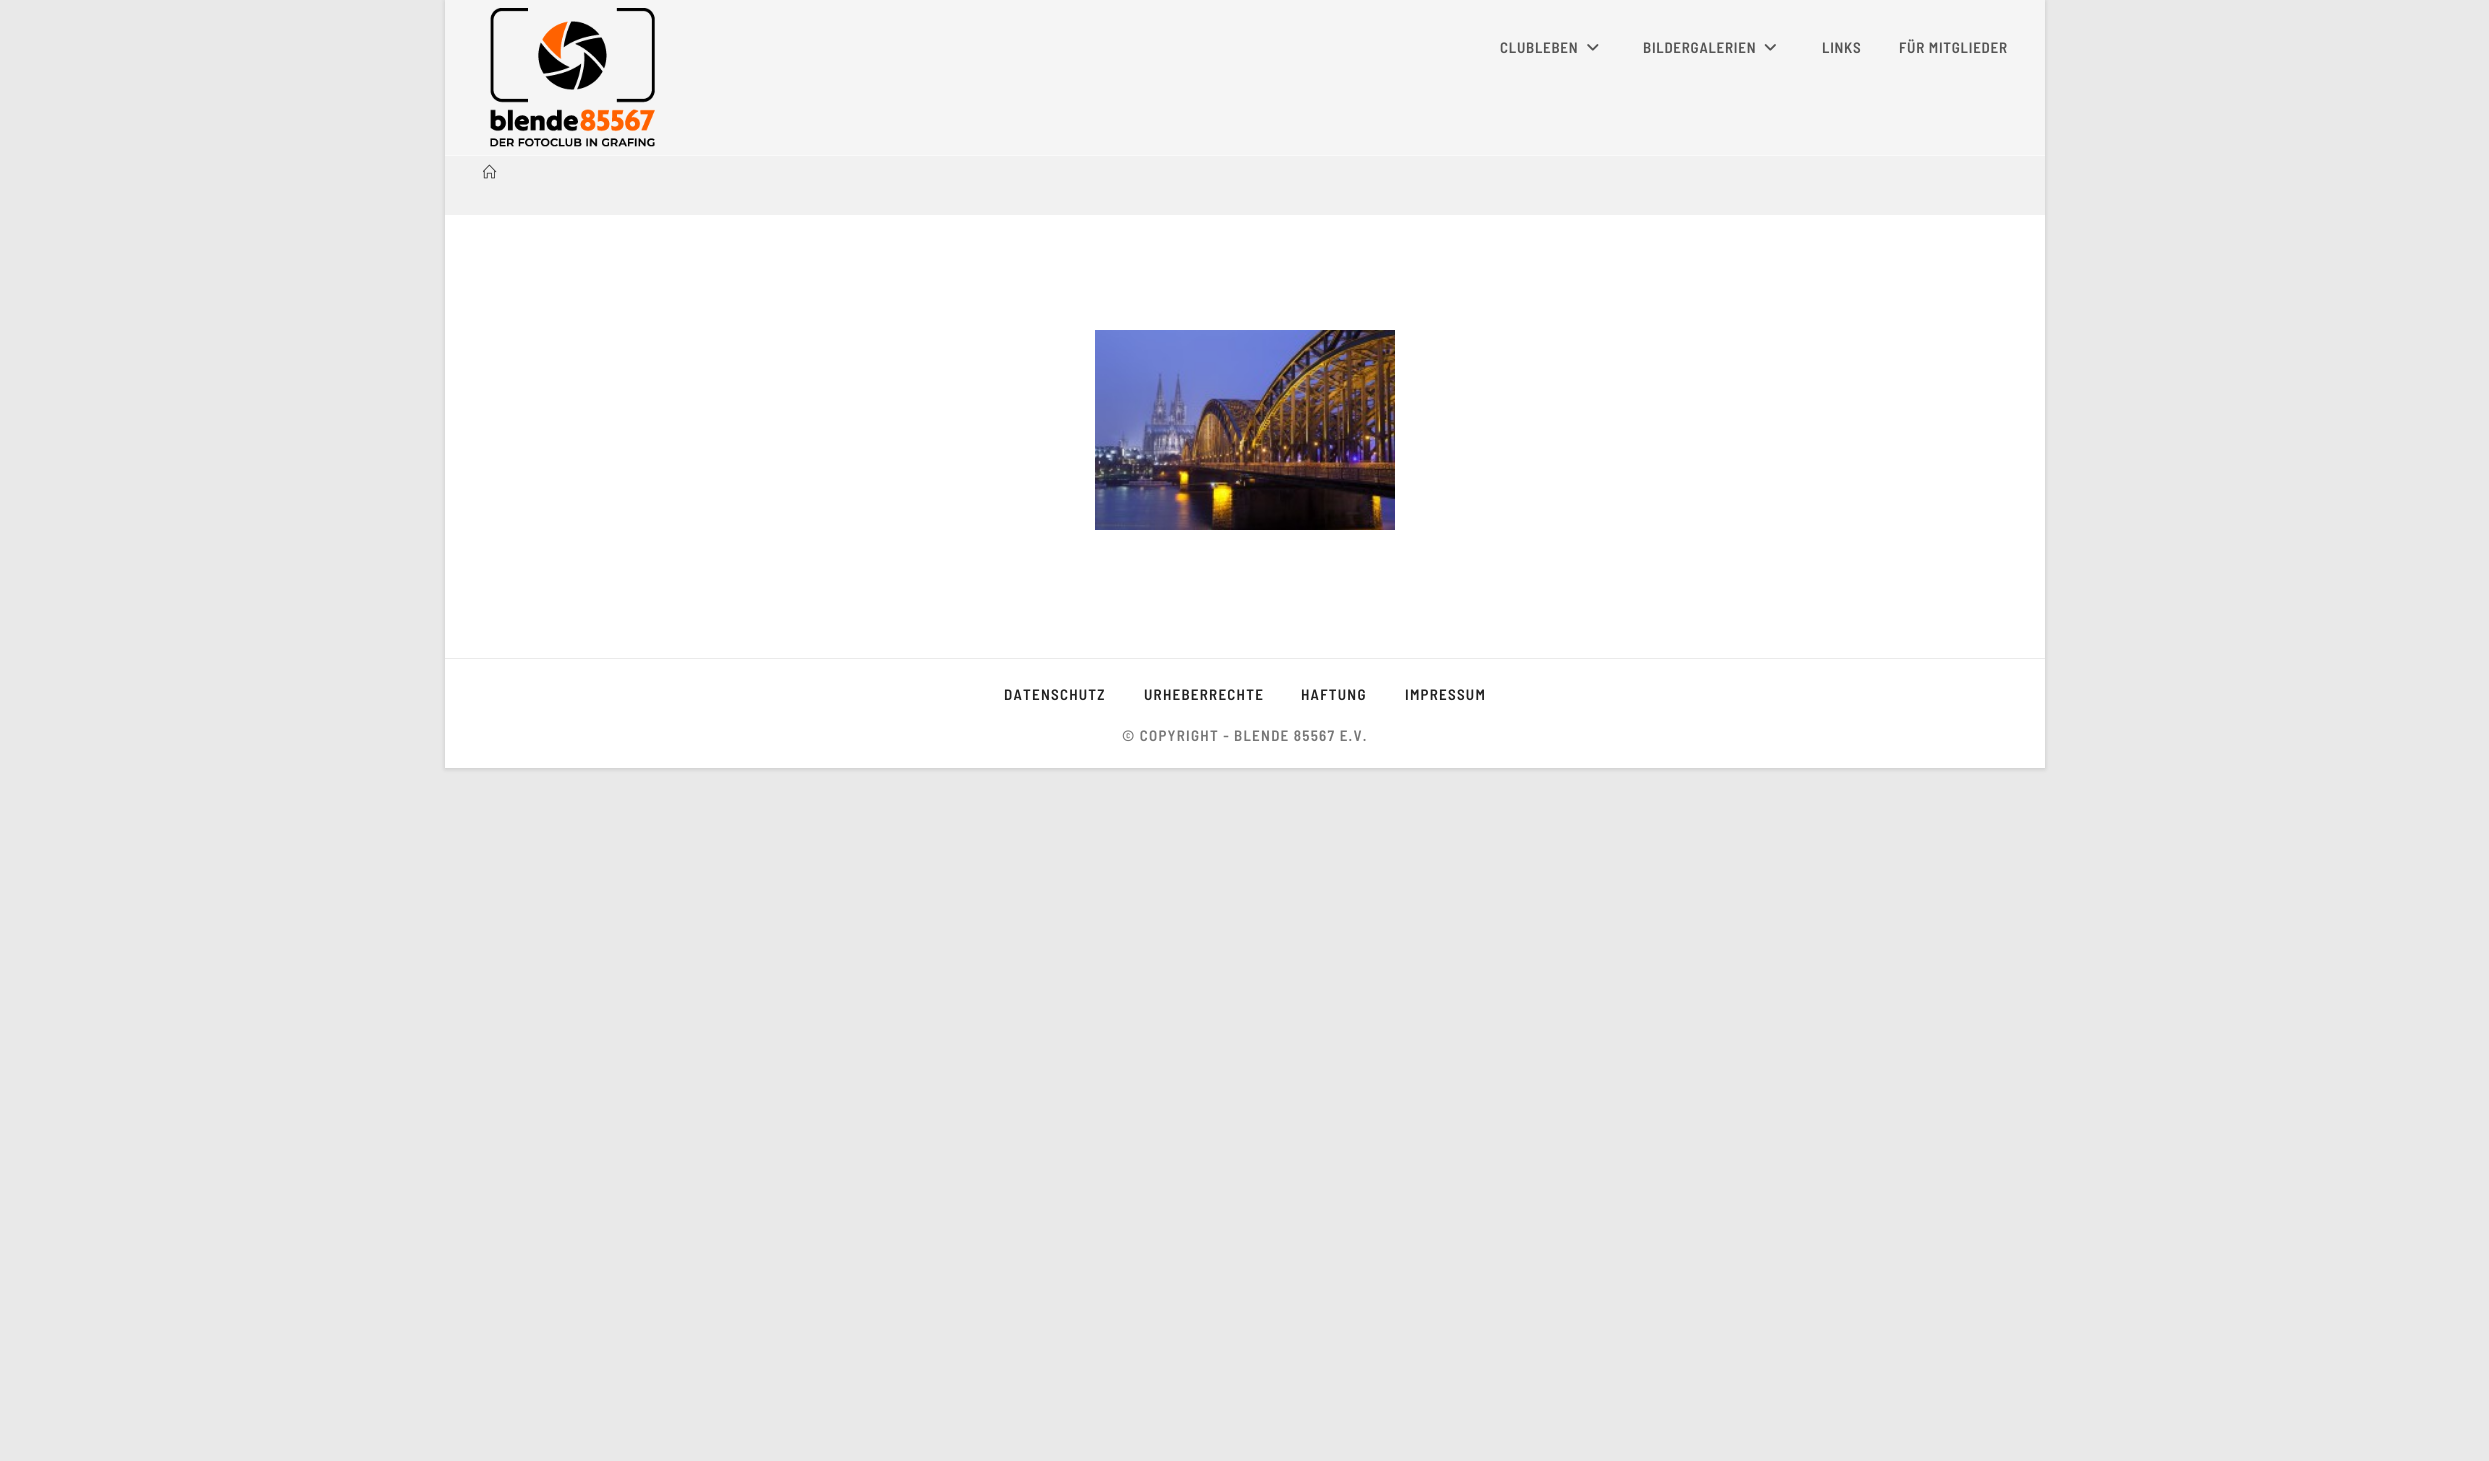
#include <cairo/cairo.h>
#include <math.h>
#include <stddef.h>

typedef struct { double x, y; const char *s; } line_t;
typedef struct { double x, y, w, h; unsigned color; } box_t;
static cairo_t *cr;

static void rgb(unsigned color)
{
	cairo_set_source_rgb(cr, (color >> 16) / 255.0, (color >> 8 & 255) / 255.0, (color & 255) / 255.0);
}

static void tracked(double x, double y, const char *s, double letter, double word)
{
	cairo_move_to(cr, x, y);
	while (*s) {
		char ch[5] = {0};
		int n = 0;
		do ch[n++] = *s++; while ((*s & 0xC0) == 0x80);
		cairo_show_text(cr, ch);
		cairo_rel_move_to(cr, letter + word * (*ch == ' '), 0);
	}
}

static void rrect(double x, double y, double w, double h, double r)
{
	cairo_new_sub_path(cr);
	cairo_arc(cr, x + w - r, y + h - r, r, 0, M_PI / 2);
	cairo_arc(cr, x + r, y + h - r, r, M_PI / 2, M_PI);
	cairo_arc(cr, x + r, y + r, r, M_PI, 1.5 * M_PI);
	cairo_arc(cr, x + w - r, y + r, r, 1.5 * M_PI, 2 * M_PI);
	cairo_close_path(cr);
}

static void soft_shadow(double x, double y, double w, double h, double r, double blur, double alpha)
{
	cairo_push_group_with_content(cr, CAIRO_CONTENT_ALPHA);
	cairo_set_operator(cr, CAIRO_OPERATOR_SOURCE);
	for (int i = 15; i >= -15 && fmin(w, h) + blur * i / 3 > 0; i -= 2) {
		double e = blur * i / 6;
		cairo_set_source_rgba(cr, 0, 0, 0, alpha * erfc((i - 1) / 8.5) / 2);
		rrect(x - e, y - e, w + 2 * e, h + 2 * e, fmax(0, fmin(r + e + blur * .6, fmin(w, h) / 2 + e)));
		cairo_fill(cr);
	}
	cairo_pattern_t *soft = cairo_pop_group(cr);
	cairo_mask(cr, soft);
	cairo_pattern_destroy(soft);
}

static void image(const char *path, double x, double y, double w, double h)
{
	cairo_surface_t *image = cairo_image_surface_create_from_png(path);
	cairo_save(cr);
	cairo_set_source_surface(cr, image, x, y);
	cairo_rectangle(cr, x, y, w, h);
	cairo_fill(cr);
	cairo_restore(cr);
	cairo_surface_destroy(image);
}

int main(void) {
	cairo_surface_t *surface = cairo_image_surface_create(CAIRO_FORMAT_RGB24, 2489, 1461);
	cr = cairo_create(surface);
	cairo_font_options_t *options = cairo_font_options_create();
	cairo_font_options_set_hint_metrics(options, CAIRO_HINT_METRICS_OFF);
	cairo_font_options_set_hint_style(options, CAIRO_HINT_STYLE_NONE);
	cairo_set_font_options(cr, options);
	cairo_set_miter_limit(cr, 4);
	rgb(0xe9e9e9);
	cairo_paint(cr);
	rgb(0x000000);
	soft_shadow(445, 1, 1600, 768, 0, 2.5, 0.15);
	{
		static const box_t items[] = {
			{445, 215, 1600, 553, 0xffffff},
			{445, 0, 1600, 155, 0xf5f5f5},
			{445, 155, 1600, 1, 0xfafafa},
		};
		for (size_t i = 0; i < sizeof items / sizeof *items; i++) {
			rgb(items[i].color);
			cairo_rectangle(cr, items[i].x, items[i].y, items[i].w, items[i].h);
			cairo_fill(cr);
		}
	}
	image("img/1.png", 490, 8, 165, 139);
	image("img/2.png", 1587, 44, 12, 7);
	image("img/3.png", 1764, 44, 12, 7);
	rgb(0xf1f1f1);
	cairo_rectangle(cr, 445, 156, 1600, 59);
	cairo_fill(cr);
	image("img/4.png", 483, 164, 14, 15);
	image("img/5.png", 1095, 330, 300, 200);
	rgb(0xeaeaea);
	cairo_rectangle(cr, 445, 658, 1600, 1);
	cairo_fill(cr);
	cairo_select_font_face(cr, "Barlow Semi Condensed SemiBold", CAIRO_FONT_SLANT_NORMAL, CAIRO_FONT_WEIGHT_NORMAL);
	cairo_set_font_size(cr, 15);
	rgb(0x555555);
	{
		static const line_t items[] = {
			{1500, 53, "CLUBLEBEN"},
			{1643, 53, "BILDERGALERIEN"},
			{1822, 53, "LINKS"},
			{1899, 53, "FÜR MITGLIEDER"},
		};
		for (size_t i = 0; i < sizeof items / sizeof *items; i++) {
			tracked(items[i].x, items[i].y, items[i].s, 0.75, 0);
		}
	}
	rgb(0x222222);
	{
		static const line_t items[] = {
			{1004, 700, "DATENSCHUTZ"},
			{1144, 700, "URHEBERRECHTE"},
			{1301, 700, "HAFTUNG"},
			{1405, 700, "IMPRESSUM"},
		};
		for (size_t i = 0; i < sizeof items / sizeof *items; i++) {
			tracked(items[i].x, items[i].y, items[i].s, 1.25, 0);
		}
	}
	rgb(0x777777);
	tracked(1122, 741, "© COPYRIGHT - BLENDE 85567 E.V.", 1.25, 0);
	cairo_surface_write_to_png(surface, "page.png");
	cairo_font_options_destroy(options);
	cairo_destroy(cr);
	cairo_surface_destroy(surface);
	return 0;
}
